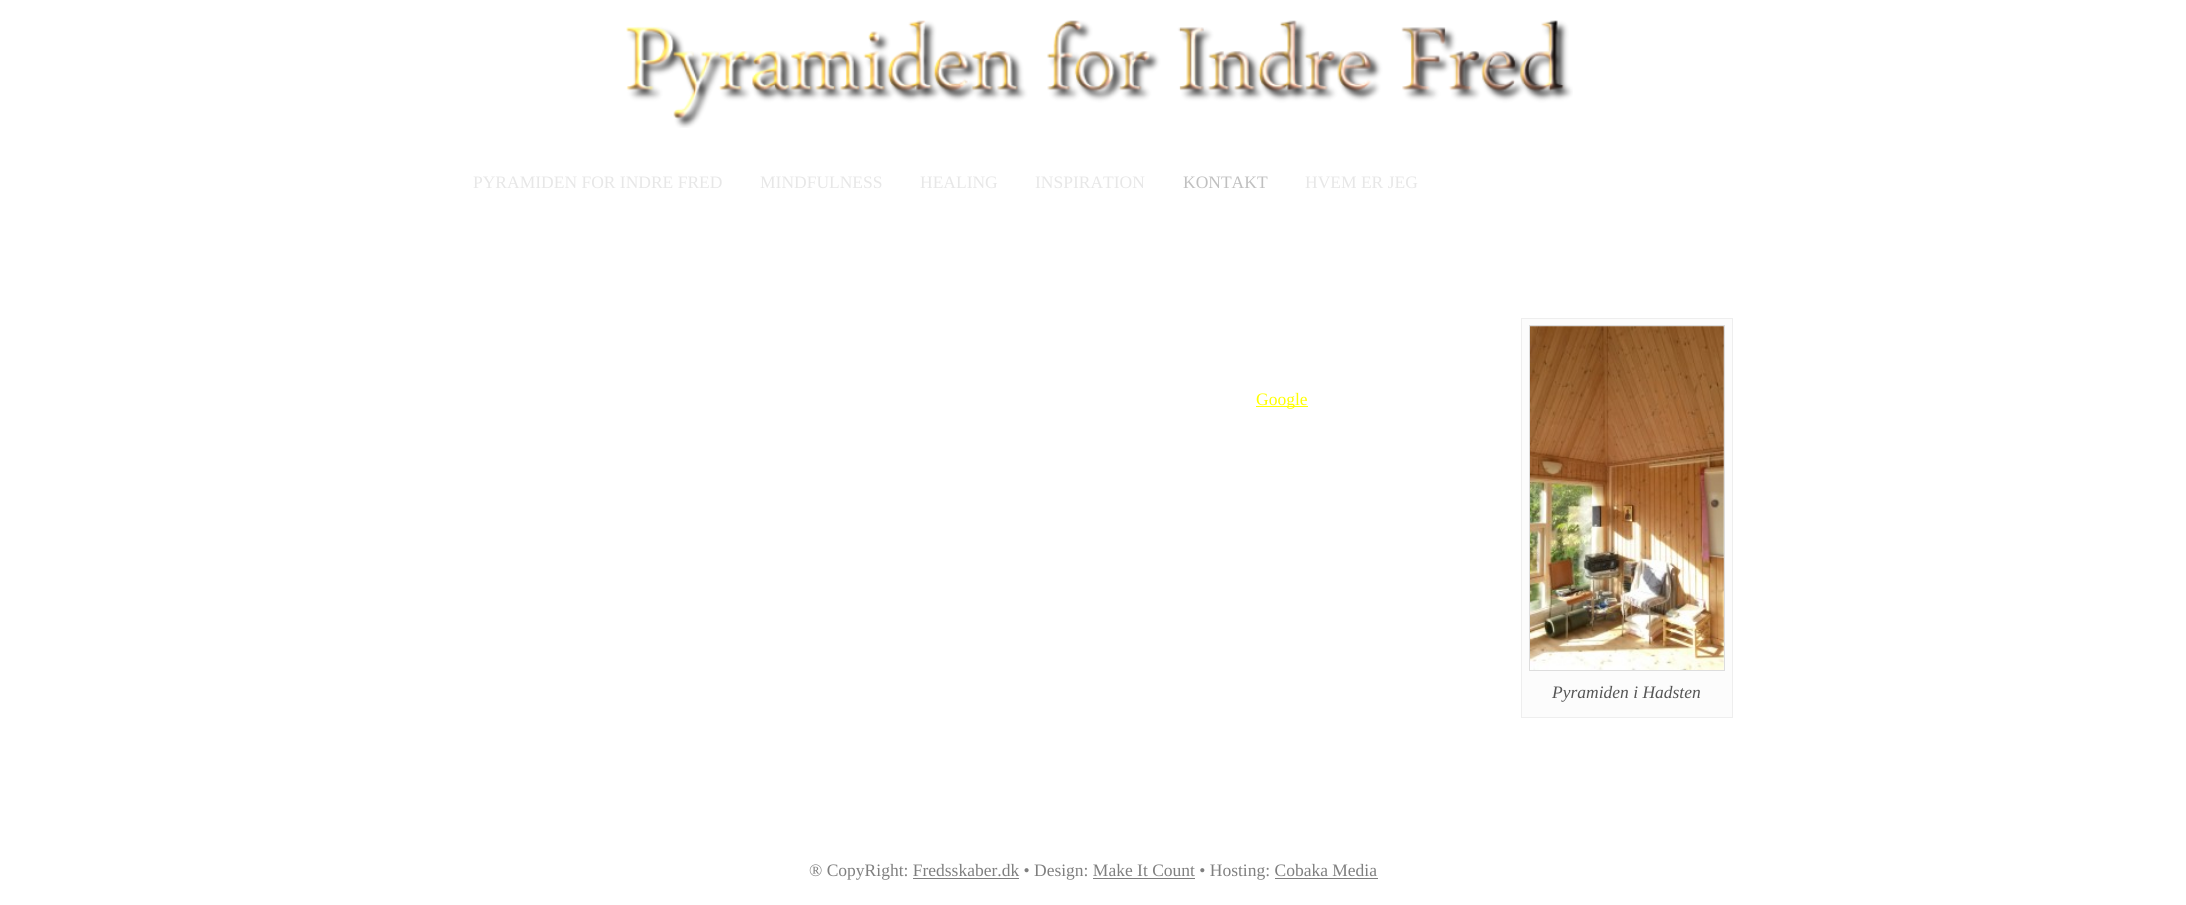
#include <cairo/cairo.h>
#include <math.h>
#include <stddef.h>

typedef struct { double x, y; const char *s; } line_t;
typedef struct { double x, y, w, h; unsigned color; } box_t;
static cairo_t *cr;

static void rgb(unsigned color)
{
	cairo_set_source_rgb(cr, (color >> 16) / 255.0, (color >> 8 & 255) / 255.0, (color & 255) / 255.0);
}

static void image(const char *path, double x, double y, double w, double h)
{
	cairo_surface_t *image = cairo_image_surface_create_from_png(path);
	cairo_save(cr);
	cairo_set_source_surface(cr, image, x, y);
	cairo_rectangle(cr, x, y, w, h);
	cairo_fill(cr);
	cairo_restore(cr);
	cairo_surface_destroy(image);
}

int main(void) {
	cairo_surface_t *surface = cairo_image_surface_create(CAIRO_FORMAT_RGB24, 2186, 905);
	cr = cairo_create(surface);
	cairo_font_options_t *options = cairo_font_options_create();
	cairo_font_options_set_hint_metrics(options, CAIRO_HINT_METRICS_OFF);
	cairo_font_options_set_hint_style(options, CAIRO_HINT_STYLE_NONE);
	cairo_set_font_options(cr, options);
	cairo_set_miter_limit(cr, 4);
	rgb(0xffffff);
	cairo_paint(cr);
	image("img/1.png", 626, 20, 947, 108);
	rgb(0xffff00);
	cairo_rectangle(cr, 1256, 406, 52, 1);
	cairo_fill(cr);
	rgb(0xfcfcfc);
	cairo_rectangle(cr, 1521.5, 318.5, 211, 399);
	cairo_fill_preserve(cr);
	rgb(0xeeeeee);
	cairo_set_line_width(cr, 1);
	cairo_stroke(cr);
	cairo_rectangle(cr, 1529.5, 325.5, 195, 345);
	rgb(0xdddddd);
	cairo_stroke(cr);
	image("img/2.png", 1530, 326, 194, 344);
	{
		static const box_t items[] = {
			{913, 878, 106, 1, 0x7f7f7f},
			{1093, 878, 102, 1, 0x7f7f7f},
			{1275, 878, 103, 1, 0x7f7f7f},
		};
		for (size_t i = 0; i < sizeof items / sizeof *items; i++) {
			rgb(items[i].color);
			cairo_rectangle(cr, items[i].x, items[i].y, items[i].w, items[i].h);
			cairo_fill(cr);
		}
	}
	cairo_select_font_face(cr, "Liberation Serif", CAIRO_FONT_SLANT_NORMAL, CAIRO_FONT_WEIGHT_NORMAL);
	cairo_set_font_size(cr, 17.5);
	rgb(0xe7e7e7);
	{
		static const line_t items[] = {
			{473, 188, "PYRAMIDEN FOR INDRE FRED"},
			{760, 188, "MINDFULNESS"},
			{920, 188, "HEALING"},
			{1035, 188, "INSPIRATION"},
		};
		for (size_t i = 0; i < sizeof items / sizeof *items; i++) {
			cairo_move_to(cr, items[i].x, items[i].y);
			cairo_show_text(cr, items[i].s);
		}
	}
	rgb(0xc0c0c0);
	cairo_move_to(cr, 1183, 188);
	cairo_show_text(cr, "KONTAKT");
	rgb(0xe7e7e7);
	cairo_move_to(cr, 1305, 188);
	cairo_show_text(cr, "HVEM ER JEG");
	rgb(0xffff00);
	cairo_move_to(cr, 1256, 405);
	cairo_show_text(cr, "Google");
	cairo_select_font_face(cr, "Liberation Serif", CAIRO_FONT_SLANT_ITALIC, CAIRO_FONT_WEIGHT_NORMAL);
	rgb(0x555555);
	cairo_move_to(cr, 1552, 698);
	cairo_show_text(cr, "Pyramiden i Hadsten");
	cairo_select_font_face(cr, "Liberation Serif", CAIRO_FONT_SLANT_NORMAL, CAIRO_FONT_WEIGHT_NORMAL);
	rgb(0x7f7f7f);
	cairo_move_to(cr, 809, 876);
	cairo_show_text(cr, "® CopyRight: Fredsskaber.dk • Design: Make It Count • Hosting: Cobaka Media");
	cairo_surface_write_to_png(surface, "page.png");
	cairo_font_options_destroy(options);
	cairo_destroy(cr);
	cairo_surface_destroy(surface);
	return 0;
}
